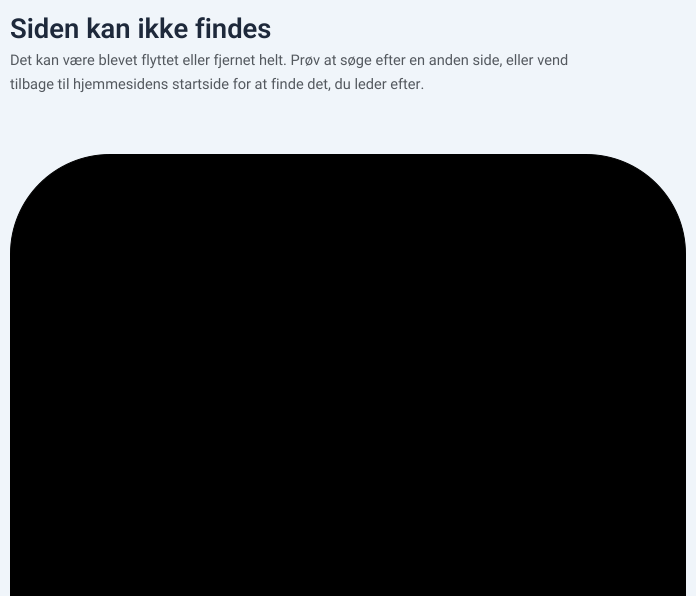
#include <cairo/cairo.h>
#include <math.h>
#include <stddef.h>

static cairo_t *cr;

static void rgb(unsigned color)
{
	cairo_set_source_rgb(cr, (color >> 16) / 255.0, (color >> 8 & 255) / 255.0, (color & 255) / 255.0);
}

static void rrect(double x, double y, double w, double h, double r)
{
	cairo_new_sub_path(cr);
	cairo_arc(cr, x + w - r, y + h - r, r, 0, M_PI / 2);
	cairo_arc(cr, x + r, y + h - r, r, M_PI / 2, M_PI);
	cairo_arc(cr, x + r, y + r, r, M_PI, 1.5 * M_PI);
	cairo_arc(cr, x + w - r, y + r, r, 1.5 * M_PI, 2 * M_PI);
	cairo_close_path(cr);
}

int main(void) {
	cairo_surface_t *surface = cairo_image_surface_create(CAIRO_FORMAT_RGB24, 696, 596);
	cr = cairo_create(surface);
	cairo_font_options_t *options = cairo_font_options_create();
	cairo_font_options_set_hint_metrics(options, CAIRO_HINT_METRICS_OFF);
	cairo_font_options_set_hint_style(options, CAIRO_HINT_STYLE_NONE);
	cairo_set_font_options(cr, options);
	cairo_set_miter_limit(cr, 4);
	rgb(0xf0f5fa);
	cairo_paint(cr);
	rgb(0x000000);
	rrect(10.5, 154.5, 675, 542, 99.5);
	cairo_fill_preserve(cr);
	cairo_set_line_width(cr, 1);
	cairo_stroke(cr);
	cairo_select_font_face(cr, "Roboto SemiBold", CAIRO_FONT_SLANT_NORMAL, CAIRO_FONT_WEIGHT_NORMAL);
	cairo_set_font_size(cr, 27.4);
	rgb(0x1e293b);
	cairo_move_to(cr, 10, 38);
	cairo_show_text(cr, "Siden kan ikke findes");
	cairo_select_font_face(cr, "Roboto", CAIRO_FONT_SLANT_NORMAL, CAIRO_FONT_WEIGHT_NORMAL);
	cairo_set_font_size(cr, 14.6);
	rgb(0x54595f);
	cairo_move_to(cr, 10, 65);
	cairo_show_text(cr, "Det kan være blevet flyttet eller fjernet helt. Prøv at søge efter en anden side, eller vend");
	cairo_move_to(cr, 10, 89);
	cairo_show_text(cr, "tilbage til hjemmesidens startside for at finde det, du leder efter.");
	cairo_surface_write_to_png(surface, "page.png");
	cairo_font_options_destroy(options);
	cairo_destroy(cr);
	cairo_surface_destroy(surface);
	return 0;
}
